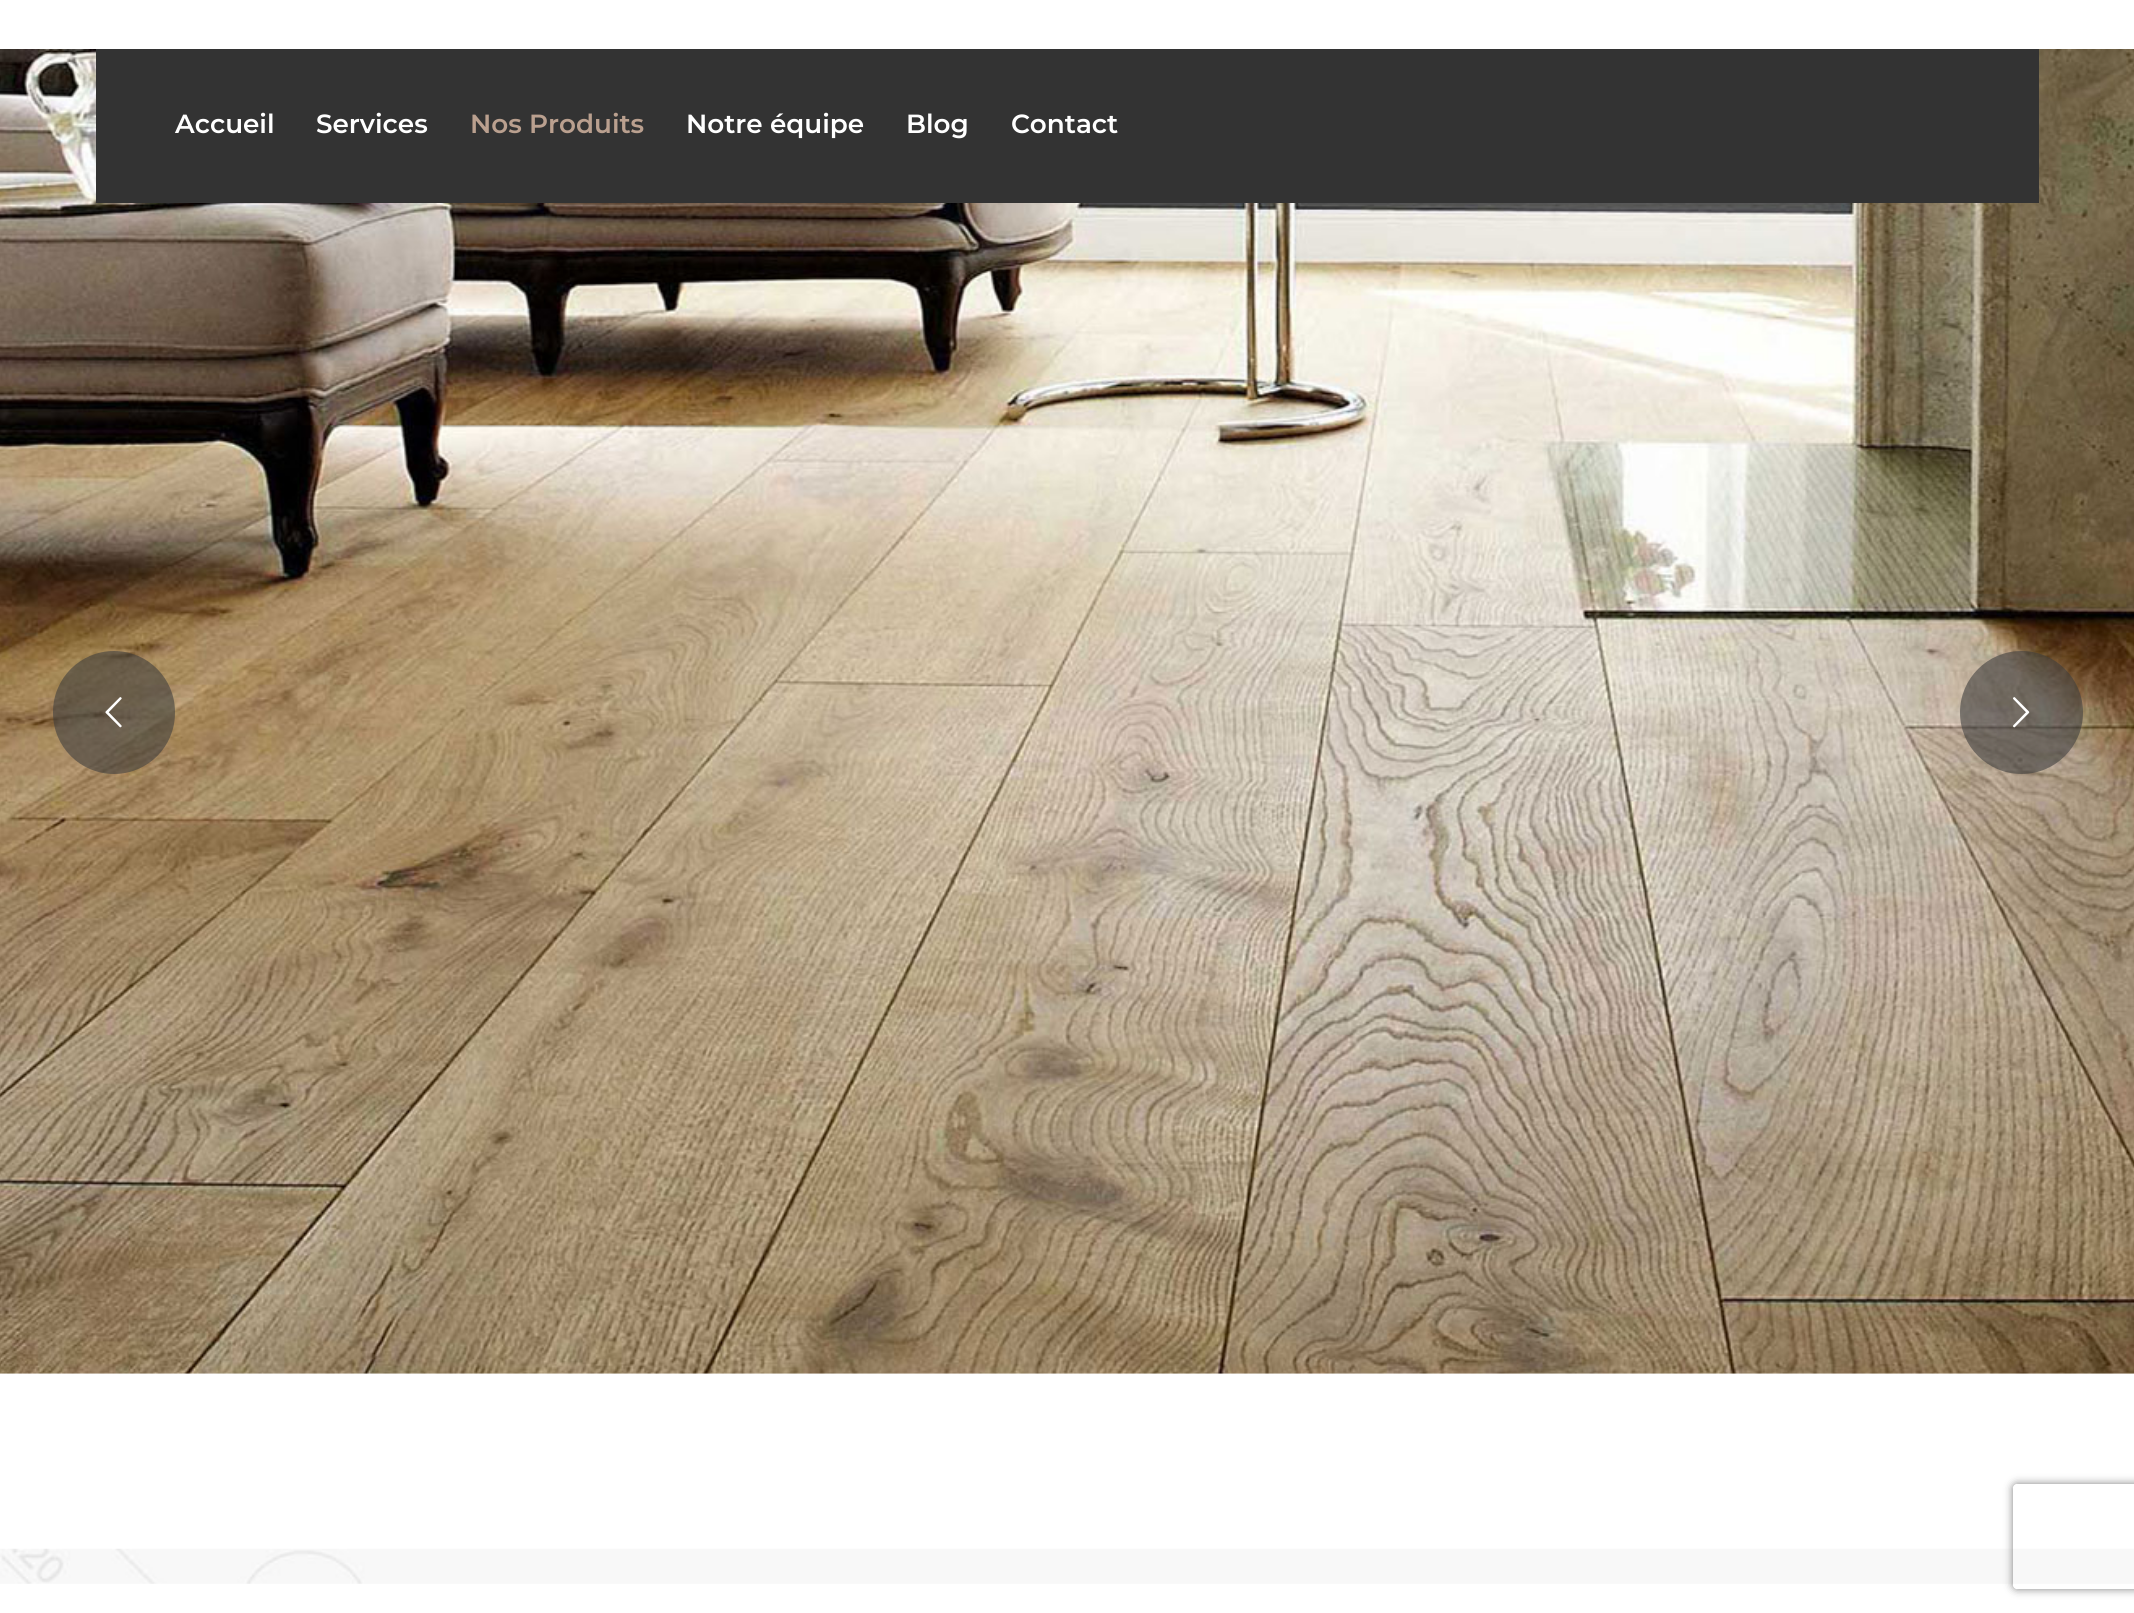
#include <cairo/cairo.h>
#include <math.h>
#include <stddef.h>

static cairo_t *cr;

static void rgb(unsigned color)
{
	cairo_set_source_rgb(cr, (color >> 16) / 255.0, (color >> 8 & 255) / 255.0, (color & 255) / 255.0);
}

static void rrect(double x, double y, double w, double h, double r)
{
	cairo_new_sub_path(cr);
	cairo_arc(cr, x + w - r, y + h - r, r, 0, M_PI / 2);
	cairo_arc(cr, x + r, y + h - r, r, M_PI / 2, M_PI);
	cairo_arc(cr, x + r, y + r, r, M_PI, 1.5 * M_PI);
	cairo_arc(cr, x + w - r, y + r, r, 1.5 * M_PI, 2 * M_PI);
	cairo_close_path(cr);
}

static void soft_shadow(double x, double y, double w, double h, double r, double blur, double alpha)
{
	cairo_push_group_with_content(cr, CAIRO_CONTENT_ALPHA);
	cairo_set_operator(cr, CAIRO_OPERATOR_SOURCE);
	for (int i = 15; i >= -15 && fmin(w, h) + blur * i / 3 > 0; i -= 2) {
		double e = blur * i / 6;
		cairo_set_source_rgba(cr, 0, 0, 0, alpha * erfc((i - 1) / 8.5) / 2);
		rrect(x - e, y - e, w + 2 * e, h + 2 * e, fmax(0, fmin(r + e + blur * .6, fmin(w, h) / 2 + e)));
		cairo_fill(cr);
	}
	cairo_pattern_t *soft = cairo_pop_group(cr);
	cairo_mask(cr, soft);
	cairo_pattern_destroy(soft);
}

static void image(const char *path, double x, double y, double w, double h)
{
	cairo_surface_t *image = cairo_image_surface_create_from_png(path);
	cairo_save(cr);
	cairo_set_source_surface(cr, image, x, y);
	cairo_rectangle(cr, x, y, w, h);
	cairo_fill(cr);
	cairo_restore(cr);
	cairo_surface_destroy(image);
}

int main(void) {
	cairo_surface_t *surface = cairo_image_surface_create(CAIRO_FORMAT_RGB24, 2134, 1613);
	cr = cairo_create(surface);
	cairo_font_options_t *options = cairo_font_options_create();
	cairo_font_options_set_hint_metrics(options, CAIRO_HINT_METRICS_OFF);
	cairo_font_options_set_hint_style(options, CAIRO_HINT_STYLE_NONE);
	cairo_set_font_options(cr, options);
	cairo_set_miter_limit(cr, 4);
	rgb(0xffffff);
	cairo_paint(cr);
	image("img/1.png", 0, 49, 2134, 1325);
	cairo_set_source_rgba(cr, 0.239, 0.239, 0.239, 0.58);
	rrect(53, 651, 122, 123, 61);
	cairo_fill(cr);
	image("img/2.png", 105, 697, 17, 31);
	cairo_arc(cr, 2021.5, 712.5, 61.5, 0, 2 * M_PI);
	cairo_fill(cr);
	image("img/3.png", 2013, 697, 17, 31);
	rgb(0x333333);
	cairo_rectangle(cr, 96, 49, 1943, 154);
	cairo_fill(cr);
	image("img/4.png", 0, 1548, 2134, 36);
	cairo_save(cr);
	cairo_set_fill_rule(cr, CAIRO_FILL_RULE_EVEN_ODD);
	cairo_new_path(cr);
	cairo_move_to(cr, 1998, 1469);
	cairo_line_to(cr, 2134, 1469);
	cairo_line_to(cr, 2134, 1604);
	cairo_line_to(cr, 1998, 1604);
	cairo_close_path(cr);
	cairo_move_to(cr, 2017, 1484);
	cairo_line_to(cr, 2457, 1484);
	cairo_curve_to(cr, 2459, 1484, 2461, 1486, 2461, 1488);
	cairo_line_to(cr, 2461, 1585);
	cairo_curve_to(cr, 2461, 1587, 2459, 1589, 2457, 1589);
	cairo_line_to(cr, 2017, 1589);
	cairo_curve_to(cr, 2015, 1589, 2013, 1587, 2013, 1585);
	cairo_line_to(cr, 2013, 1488);
	cairo_curve_to(cr, 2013, 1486, 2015, 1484, 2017, 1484);
	cairo_close_path(cr);
	cairo_clip(cr);
	rgb(0x808080);
	soft_shadow(2013, 1484, 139, 105, 4, 4.5, 1);
	cairo_restore(cr);
	cairo_select_font_face(cr, "Montserrat SemiBold", CAIRO_FONT_SLANT_NORMAL, CAIRO_FONT_WEIGHT_NORMAL);
	cairo_set_font_size(cr, 26.25);
	rgb(0xffffff);
	cairo_move_to(cr, 175, 133);
	cairo_show_text(cr, "Accueil");
	cairo_move_to(cr, 316, 133);
	cairo_show_text(cr, "Services");
	rgb(0xbaa08f);
	cairo_move_to(cr, 470, 133);
	cairo_show_text(cr, "Nos Produits");
	rgb(0xffffff);
	cairo_move_to(cr, 686, 133);
	cairo_show_text(cr, "Notre équipe");
	cairo_move_to(cr, 906, 133);
	cairo_show_text(cr, "Blog");
	cairo_save(cr);
	cairo_rectangle(cr, 1012, 63, 106, 124);
	cairo_clip(cr);
	cairo_move_to(cr, 1011, 133);
	cairo_show_text(cr, "Contact");
	cairo_restore(cr);
	cairo_surface_write_to_png(surface, "page.png");
	cairo_font_options_destroy(options);
	cairo_destroy(cr);
	cairo_surface_destroy(surface);
	return 0;
}
